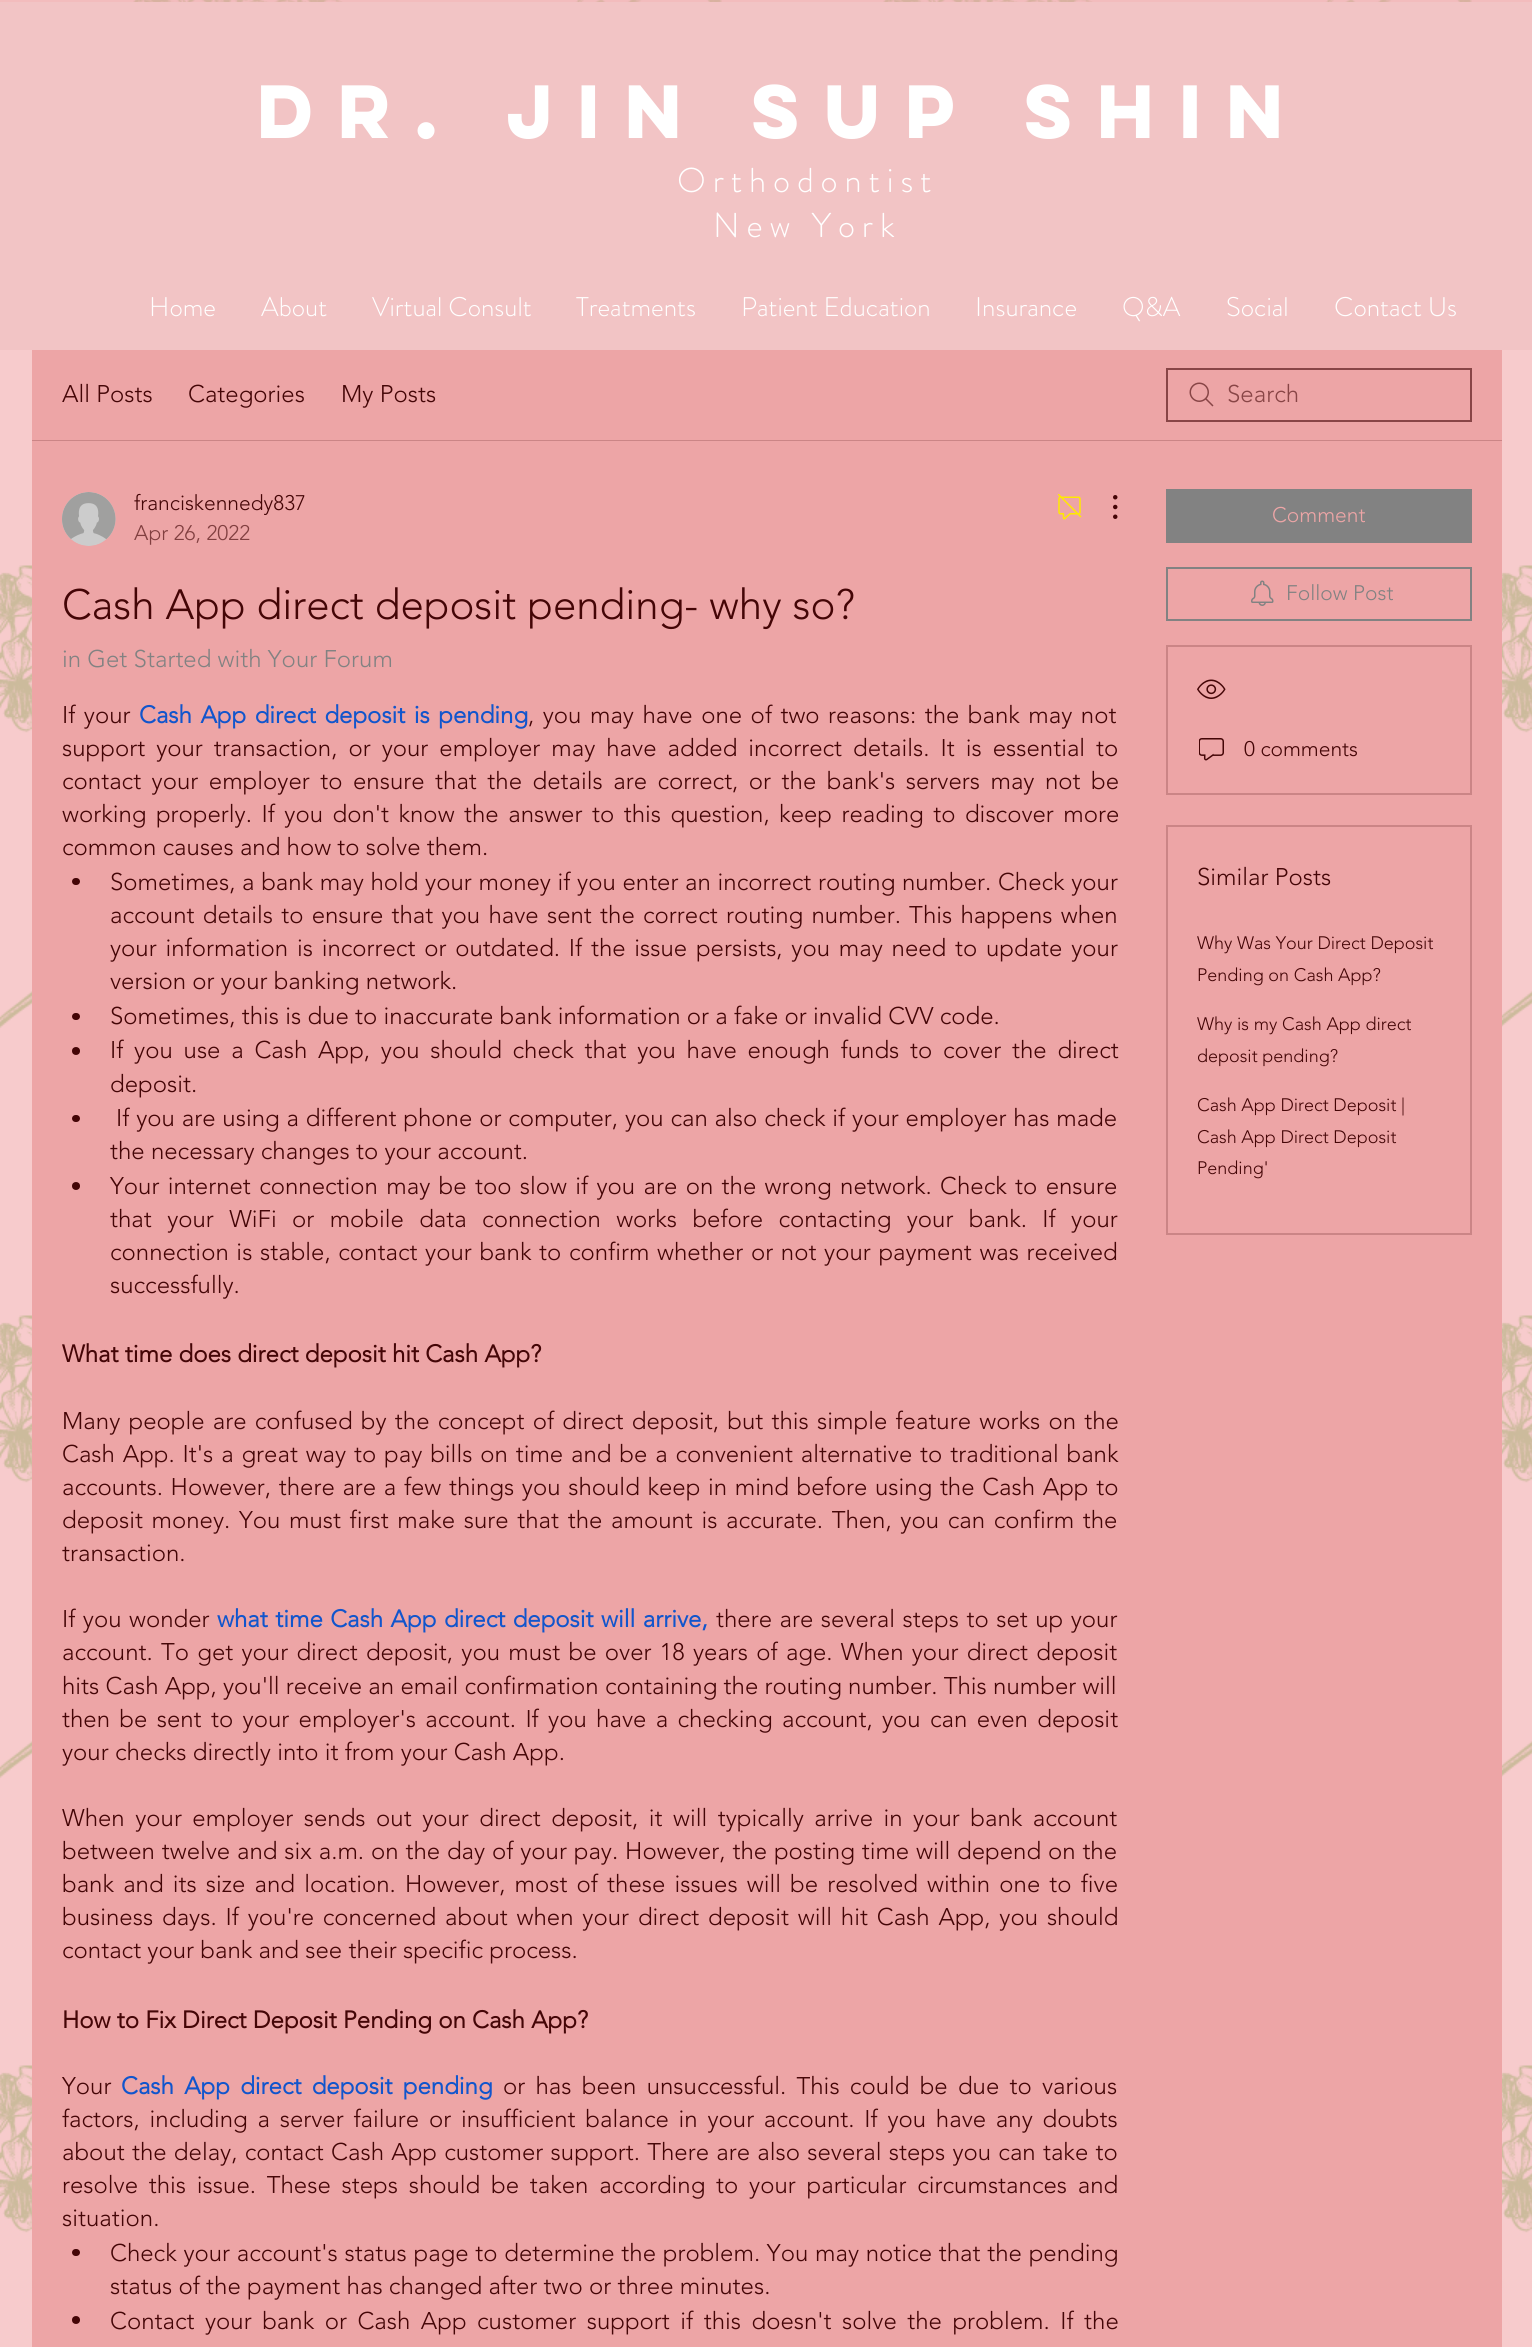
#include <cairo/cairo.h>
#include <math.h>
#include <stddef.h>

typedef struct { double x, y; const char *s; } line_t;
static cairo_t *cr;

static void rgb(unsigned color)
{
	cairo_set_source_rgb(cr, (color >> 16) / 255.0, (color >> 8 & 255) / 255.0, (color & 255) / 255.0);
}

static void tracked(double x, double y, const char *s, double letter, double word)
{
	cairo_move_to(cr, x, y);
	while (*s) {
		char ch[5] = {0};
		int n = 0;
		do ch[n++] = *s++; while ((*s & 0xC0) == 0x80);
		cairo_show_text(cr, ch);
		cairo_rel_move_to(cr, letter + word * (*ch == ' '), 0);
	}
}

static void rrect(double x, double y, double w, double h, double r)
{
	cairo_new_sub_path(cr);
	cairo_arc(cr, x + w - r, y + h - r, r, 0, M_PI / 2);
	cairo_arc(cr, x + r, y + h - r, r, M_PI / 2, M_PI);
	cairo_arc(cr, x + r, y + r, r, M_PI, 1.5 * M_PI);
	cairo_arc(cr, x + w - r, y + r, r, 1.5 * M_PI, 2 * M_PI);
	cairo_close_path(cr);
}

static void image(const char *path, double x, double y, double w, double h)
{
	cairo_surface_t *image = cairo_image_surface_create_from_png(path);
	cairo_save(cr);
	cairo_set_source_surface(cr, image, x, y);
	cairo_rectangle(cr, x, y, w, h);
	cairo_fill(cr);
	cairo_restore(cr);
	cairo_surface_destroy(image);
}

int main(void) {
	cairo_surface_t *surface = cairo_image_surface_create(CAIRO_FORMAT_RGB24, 1532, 2347);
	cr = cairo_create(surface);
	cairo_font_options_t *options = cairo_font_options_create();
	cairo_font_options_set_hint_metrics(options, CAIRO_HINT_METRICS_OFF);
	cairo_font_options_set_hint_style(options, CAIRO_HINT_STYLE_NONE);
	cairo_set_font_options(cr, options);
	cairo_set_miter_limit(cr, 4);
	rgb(0xf7cbcc);
	cairo_paint(cr);
	image("img/1.png", 0, 0, 1532, 2233);
	cairo_set_source_rgba(cr, 0.929, 0.647, 0.651, 0.38);
	cairo_rectangle(cr, 0, 0, 1532, 2);
	cairo_fill(cr);
	rgb(0xf2c4c5);
	cairo_rectangle(cr, 0, 2, 1532, 348);
	cairo_fill(cr);
	rgb(0xeda5a6);
	cairo_rectangle(cr, 32, 350, 1470, 90);
	cairo_fill(cr);
	rgb(0xcb8586);
	cairo_rectangle(cr, 32, 440, 1470, 1);
	cairo_fill(cr);
	image("img/2.png", 1189, 382, 25, 25);
	cairo_rectangle(cr, 1167, 369, 304, 52);
	rgb(0x884546);
	cairo_stroke(cr);
	rgb(0xeda5a6);
	cairo_rectangle(cr, 32, 441, 1470, 1906);
	cairo_fill(cr);
	image("img/3.png", 62, 492, 54, 54);
	image("img/4.png", 1058, 494, 24, 26);
	image("img/5.png", 1113, 495, 5, 24);
	rgb(0x440506);
	rrect(72, 878, 8, 7, 3.5);
	cairo_fill(cr);
	rrect(72, 1013, 8, 7, 3.5);
	cairo_fill(cr);
	cairo_arc(cr, 76, 1051, 4, 0, 2 * M_PI);
	cairo_fill(cr);
	rrect(72, 1115, 8, 7, 3.5);
	cairo_fill(cr);
	cairo_arc(cr, 76, 1186, 4, 0, 2 * M_PI);
	cairo_fill(cr);
	rrect(72, 2249, 8, 7, 3.5);
	cairo_fill(cr);
	cairo_arc(cr, 76, 2320, 4, 0, 2 * M_PI);
	cairo_fill(cr);
	rgb(0x828282);
	cairo_rectangle(cr, 1166, 489, 306, 54);
	cairo_fill(cr);
	cairo_rectangle(cr, 1167, 568, 304, 52);
	cairo_stroke(cr);
	image("img/6.png", 1251, 580, 23, 26);
	cairo_rectangle(cr, 1167, 646, 304, 148);
	rgb(0xcb8586);
	cairo_stroke(cr);
	image("img/7.png", 1197, 679, 29, 20);
	image("img/8.png", 1199, 738, 25, 23);
	cairo_rectangle(cr, 1167, 826, 304, 408);
	cairo_stroke(cr);
	cairo_select_font_face(cr, "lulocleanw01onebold", CAIRO_FONT_SLANT_NORMAL, CAIRO_FONT_WEIGHT_BOLD);
	cairo_set_font_size(cr, 67.5);
	rgb(0xffffff);
	tracked(257, 138, "dR. JIN SUP SHIN", 10.1, 0);
	cairo_select_font_face(cr, "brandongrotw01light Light", CAIRO_FONT_SLANT_NORMAL, CAIRO_FONT_WEIGHT_NORMAL);
	cairo_set_font_size(cr, 34.5);
	tracked(677, 192, "Orthodontist", 6.9, 0);
	tracked(713, 237, "New York", 6.9, 0);
	cairo_set_font_size(cr, 27);
	{
		static const line_t items[] = {
			{149, 316, "Home"},
			{261, 316, "About"},
			{372, 316, "Virtual Consult"},
			{576, 316, "Treatments"},
			{741, 316, "Patient Education"},
			{975, 316, "Insurance"},
			{1122, 316, "Q&A"},
			{1226, 316, "Social"},
			{1334, 316, "Contact Us"},
		};
		for (size_t i = 0; i < sizeof items / sizeof *items; i++) {
			cairo_move_to(cr, items[i].x, items[i].y);
			cairo_show_text(cr, items[i].s);
		}
	}
	cairo_select_font_face(cr, "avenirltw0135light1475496 Light", CAIRO_FONT_SLANT_NORMAL, CAIRO_FONT_WEIGHT_NORMAL);
	cairo_set_font_size(cr, 24);
	rgb(0x440506);
	{
		static const line_t items[] = {
			{62, 402, "All Posts"},
			{188, 402, "Categories"},
			{341, 402, "My Posts"},
		};
		for (size_t i = 0; i < sizeof items / sizeof *items; i++) {
			cairo_move_to(cr, items[i].x, items[i].y);
			cairo_show_text(cr, items[i].s);
		}
	}
	rgb(0x884546);
	cairo_move_to(cr, 1227, 402);
	cairo_show_text(cr, "Search");
	cairo_set_font_size(cr, 21);
	rgb(0x440506);
	cairo_move_to(cr, 134, 510);
	cairo_show_text(cr, "franciskennedy837");
	rgb(0x813f40);
	cairo_move_to(cr, 134, 540);
	cairo_show_text(cr, "Apr 26, 2022");
	cairo_set_font_size(cr, 42);
	rgb(0x440506);
	cairo_move_to(cr, 62, 619);
	cairo_show_text(cr, "Cash App direct deposit pending- why so?");
	cairo_set_font_size(cr, 24);
	rgb(0x828282);
	cairo_move_to(cr, 62, 667);
	cairo_show_text(cr, "in Get Started with Your Forum");
	rgb(0x440506);
	tracked(62, 723, "If your", 0, 2.25);
	cairo_select_font_face(cr, "avenirltw0135light1475496", CAIRO_FONT_SLANT_NORMAL, CAIRO_FONT_WEIGHT_BOLD);
	rgb(0x1155cc);
	tracked(139, 723, "Cash App direct deposit is pending", 0, 2.25);
	cairo_select_font_face(cr, "avenirltw0135light1475496 Light", CAIRO_FONT_SLANT_NORMAL, CAIRO_FONT_WEIGHT_NORMAL);
	rgb(0x440506);
	tracked(528, 723, ", you may have one of two reasons: the bank may not", 0, 2.25);
	tracked(62, 756, "support your transaction, or your employer may have added incorrect details. It is essential to", 0, 4.75);
	tracked(62, 789, "contact your employer to ensure that the details are correct, or the bank's servers may not be", 0, 4.25);
	tracked(62, 822, "working properly. If you don't know the answer to this question, keep reading to discover more", 0, 3.25);
	cairo_move_to(cr, 62, 855);
	cairo_show_text(cr, "common causes and how to solve them.");
	tracked(110, 890, "Sometimes, a bank may hold your money if you enter an incorrect routing number. Check your", 0, 0.4);
	tracked(110, 923, "account details to ensure that you have sent the correct routing number. This happens when", 0, 2);
	tracked(110, 956, "your information is incorrect or outdated. If the issue persists, you may need to update your", 0, 2.5);
	cairo_move_to(cr, 110, 989);
	cairo_show_text(cr, "version or your banking network.");
	cairo_move_to(cr, 110, 1024);
	cairo_show_text(cr, "Sometimes, this is due to inaccurate bank information or a fake or invalid CVV code.");
	tracked(110, 1058, "If you use a Cash App, you should check that you have enough funds to cover the direct", 0, 4.5);
	cairo_move_to(cr, 110, 1092);
	cairo_show_text(cr, "deposit.");
	tracked(116, 1126, "If you are using a different phone or computer, you can also check if your employer has made", 0, 0.6);
	cairo_move_to(cr, 110, 1159);
	cairo_show_text(cr, "the necessary changes to your account.");
	tracked(110, 1194, "Your internet connection may be too slow if you are on the wrong network. Check to ensure", 0, 2.1);
	tracked(110, 1227, "that your WiFi or mobile data connection works before contacting your bank. If your", 0, 9.1);
	tracked(110, 1260, "connection is stable, contact your bank to confirm whether or not your payment was received", 0, 1.4);
	cairo_move_to(cr, 110, 1293);
	cairo_show_text(cr, "successfully.");
	cairo_select_font_face(cr, "avenirltw0135light1475496", CAIRO_FONT_SLANT_NORMAL, CAIRO_FONT_WEIGHT_BOLD);
	cairo_move_to(cr, 62, 1362);
	cairo_show_text(cr, "What time does direct deposit hit Cash App?");
	cairo_select_font_face(cr, "avenirltw0135light1475496 Light", CAIRO_FONT_SLANT_NORMAL, CAIRO_FONT_WEIGHT_NORMAL);
	tracked(62, 1429, "Many people are confused by the concept of direct deposit, but this simple feature works on the", 0, 2);
	tracked(62, 1462, "Cash App. It's a great way to pay bills on time and be a convenient alternative to traditional bank", 0, 1.6);
	tracked(62, 1495, "accounts. However, there are a few things you should keep in mind before using the Cash App to", 0, 1.4);
	tracked(62, 1528, "deposit money. You must first make sure that the amount is accurate. Then, you can confirm the", 0, 2.4);
	cairo_move_to(cr, 62, 1561);
	cairo_show_text(cr, "transaction.");
	tracked(62, 1627, "If you wonder", 0, 1.25);
	cairo_select_font_face(cr, "avenirltw0135light1475496", CAIRO_FONT_SLANT_NORMAL, CAIRO_FONT_WEIGHT_BOLD);
	rgb(0x1155cc);
	tracked(217, 1627, "what time Cash App direct deposit will arrive,", 0, 1.25);
	cairo_select_font_face(cr, "avenirltw0135light1475496 Light", CAIRO_FONT_SLANT_NORMAL, CAIRO_FONT_WEIGHT_NORMAL);
	rgb(0x440506);
	tracked(716, 1627, "there are several steps to set up your", 0, 1.25);
	tracked(62, 1660, "account. To get your direct deposit, you must be over 18 years of age. When your direct deposit", 0, 2);
	cairo_move_to(cr, 62, 1694);
	cairo_show_text(cr, "hits Cash App, you'll receive an email confirmation containing the routing number. This number will");
	tracked(62, 1727, "then be sent to your employer's account. If you have a checking account, you can even deposit", 0, 3.1);
	cairo_move_to(cr, 62, 1760);
	cairo_show_text(cr, "your checks directly into it from your Cash App.");
	tracked(62, 1826, "When your employer sends out your direct deposit, it will typically arrive in your bank account", 0, 4.25);
	tracked(62, 1859, "between twelve and six a.m. on the day of your pay. However, the posting time will depend on the", 0, 0.6);
	tracked(62, 1892, "bank and its size and location. However, most of these issues will be resolved within one to five", 0, 2.9);
	tracked(62, 1925, "business days. If you're concerned about when your direct deposit will hit Cash App, you should", 0, 2.6);
	cairo_move_to(cr, 62, 1958);
	cairo_show_text(cr, "contact your bank and see their specific process.");
	cairo_select_font_face(cr, "avenirltw0135light1475496", CAIRO_FONT_SLANT_NORMAL, CAIRO_FONT_WEIGHT_BOLD);
	cairo_move_to(cr, 62, 2028);
	cairo_show_text(cr, "How to Fix Direct Deposit Pending on Cash App?");
	cairo_select_font_face(cr, "avenirltw0135light1475496 Light", CAIRO_FONT_SLANT_NORMAL, CAIRO_FONT_WEIGHT_NORMAL);
	cairo_move_to(cr, 62, 2094);
	cairo_show_text(cr, "Your");
	cairo_select_font_face(cr, "avenirltw0135light1475496", CAIRO_FONT_SLANT_NORMAL, CAIRO_FONT_WEIGHT_BOLD);
	rgb(0x1155cc);
	tracked(121, 2094, "Cash App direct deposit pending", 0, 4);
	cairo_select_font_face(cr, "avenirltw0135light1475496 Light", CAIRO_FONT_SLANT_NORMAL, CAIRO_FONT_WEIGHT_NORMAL);
	rgb(0x440506);
	tracked(503, 2094, "or has been unsuccessful. This could be due to various", 0, 4);
	tracked(62, 2127, "factors, including a server failure or insufficient balance in your account. If you have any doubts", 0, 3.5);
	tracked(62, 2160, "about the delay, contact Cash App customer support. There are also several steps you can take to", 0, 1);
	tracked(62, 2193, "resolve this issue. These steps should be taken according to your particular circumstances and", 0, 4.5);
	cairo_move_to(cr, 62, 2226);
	cairo_show_text(cr, "situation.");
	tracked(110, 2261, "Check your account's status page to determine the problem. You may notice that the pending", 0, 0.5);
	cairo_move_to(cr, 110, 2294);
	cairo_show_text(cr, "status of the payment has changed after two or three minutes.");
	tracked(110, 2329, "Contact your bank or Cash App customer support if this doesn't solve the problem. If the", 0, 4.25);
	cairo_set_font_size(cr, 21);
	rgb(0xeda5a6);
	cairo_move_to(cr, 1272, 522);
	cairo_show_text(cr, "Comment");
	rgb(0x828282);
	cairo_move_to(cr, 1286, 600);
	cairo_show_text(cr, "Follow Post");
	rgb(0x440506);
	cairo_move_to(cr, 1244, 756);
	cairo_show_text(cr, "0 comments");
	cairo_set_font_size(cr, 24);
	cairo_move_to(cr, 1197, 885);
	cairo_show_text(cr, "Similar Posts");
	cairo_set_font_size(cr, 18);
	{
		static const line_t items[] = {
			{1197, 949, "Why Was Your Direct Deposit"},
			{1197, 981, "Pending on Cash App?"},
			{1197, 1030, "Why is my Cash App direct"},
			{1197, 1062, "deposit pending?"},
			{1197, 1111, "Cash App Direct Deposit |"},
			{1197, 1143, "Cash App Direct Deposit"},
			{1197, 1174, "Pending'"},
		};
		for (size_t i = 0; i < sizeof items / sizeof *items; i++) {
			cairo_move_to(cr, items[i].x, items[i].y);
			cairo_show_text(cr, items[i].s);
		}
	}
	cairo_surface_write_to_png(surface, "page.png");
	cairo_font_options_destroy(options);
	cairo_destroy(cr);
	cairo_surface_destroy(surface);
	return 0;
}
